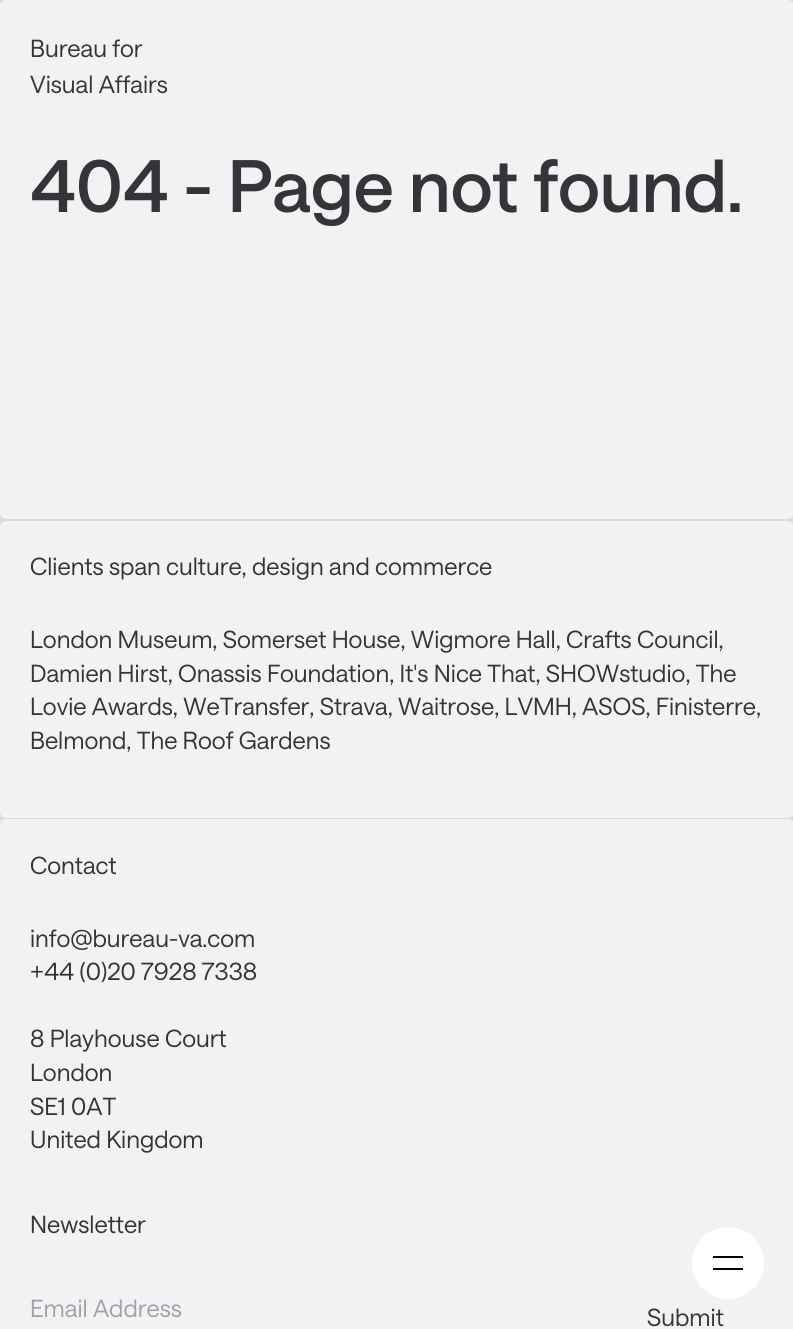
#include <cairo/cairo.h>
#include <math.h>
#include <stddef.h>

typedef struct { double x, y; const char *s; } line_t;
static cairo_t *cr;

static void rgb(unsigned color)
{
	cairo_set_source_rgb(cr, (color >> 16) / 255.0, (color >> 8 & 255) / 255.0, (color & 255) / 255.0);
}

static void rrect(double x, double y, double w, double h, double r)
{
	cairo_new_sub_path(cr);
	cairo_arc(cr, x + w - r, y + h - r, r, 0, M_PI / 2);
	cairo_arc(cr, x + r, y + h - r, r, M_PI / 2, M_PI);
	cairo_arc(cr, x + r, y + r, r, M_PI, 1.5 * M_PI);
	cairo_arc(cr, x + w - r, y + r, r, 1.5 * M_PI, 2 * M_PI);
	cairo_close_path(cr);
}

int main(void) {
	cairo_surface_t *surface = cairo_image_surface_create(CAIRO_FORMAT_RGB24, 793, 1329);
	cr = cairo_create(surface);
	cairo_font_options_t *options = cairo_font_options_create();
	cairo_font_options_set_hint_metrics(options, CAIRO_HINT_METRICS_OFF);
	cairo_font_options_set_hint_style(options, CAIRO_HINT_STYLE_NONE);
	cairo_set_font_options(cr, options);
	cairo_set_miter_limit(cr, 4);
	rgb(0xdbdbdb);
	cairo_paint(cr);
	rgb(0xf2f2f2);
	rrect(0, 0, 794, 519, 6);
	cairo_fill(cr);
	cairo_new_path(cr);
	cairo_move_to(cr, 6, 819);
	cairo_line_to(cr, 788, 819);
	cairo_curve_to(cr, 791.5, 819, 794, 821.5, 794, 825);
	cairo_line_to(cr, 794, 1329);
	cairo_line_to(cr, 0, 1329);
	cairo_line_to(cr, 0, 825);
	cairo_curve_to(cr, 0, 821.5, 2.5, 819, 6, 819);
	cairo_close_path(cr);
	cairo_fill(cr);
	rgb(0xffffff);
	cairo_arc(cr, 728, 1263, 36, 0, 2 * M_PI);
	cairo_fill(cr);
	rgb(0x000000);
	cairo_rectangle(cr, 713, 1256, 30, 2);
	cairo_fill(cr);
	cairo_rectangle(cr, 713, 1268, 30, 2);
	cairo_fill(cr);
	rgb(0xf2f2f2);
	rrect(0, 521, 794, 297, 6);
	cairo_fill(cr);
	cairo_select_font_face(cr, "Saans", CAIRO_FONT_SLANT_NORMAL, CAIRO_FONT_WEIGHT_NORMAL);
	cairo_set_font_size(cr, 24);
	rgb(0x33353a);
	cairo_move_to(cr, 30, 57);
	cairo_show_text(cr, "Bureau for");
	cairo_move_to(cr, 30, 93);
	cairo_show_text(cr, "Visual Affairs");
	cairo_select_font_face(cr, "Saans Medium", CAIRO_FONT_SLANT_NORMAL, CAIRO_FONT_WEIGHT_NORMAL);
	cairo_set_font_size(cr, 72);
	cairo_move_to(cr, 30, 212);
	cairo_show_text(cr, "404 - Page not found.");
	cairo_select_font_face(cr, "Saans", CAIRO_FONT_SLANT_NORMAL, CAIRO_FONT_WEIGHT_NORMAL);
	cairo_set_font_size(cr, 24);
	{
		static const line_t items[] = {
			{30, 575, "Clients span culture, design and commerce"},
			{30, 648, "London Museum, Somerset House, Wigmore Hall, Crafts Council,"},
			{30, 682, "Damien Hirst, Onassis Foundation, It's Nice That, SHOWstudio, The"},
			{30, 715, "Lovie Awards, WeTransfer, Strava, Waitrose, LVMH, ASOS, Finisterre,"},
			{30, 749, "Belmond, The Roof Gardens"},
			{30, 874, "Contact"},
			{30, 947, "info@bureau-va.com"},
			{30, 980, "+44 (0)20 7928 7338"},
			{30, 1047, "8 Playhouse Court"},
			{30, 1081, "London"},
			{30, 1115, "SE1 0AT"},
			{30, 1148, "United Kingdom"},
			{30, 1233, "Newsletter"},
		};
		for (size_t i = 0; i < sizeof items / sizeof *items; i++) {
			cairo_move_to(cr, items[i].x, items[i].y);
			cairo_show_text(cr, items[i].s);
		}
	}
	rgb(0x9ca3af);
	cairo_move_to(cr, 30, 1317);
	cairo_show_text(cr, "Email Address");
	rgb(0x33353a);
	cairo_move_to(cr, 647, 1326);
	cairo_show_text(cr, "Submit");
	cairo_surface_write_to_png(surface, "page.png");
	cairo_font_options_destroy(options);
	cairo_destroy(cr);
	cairo_surface_destroy(surface);
	return 0;
}
